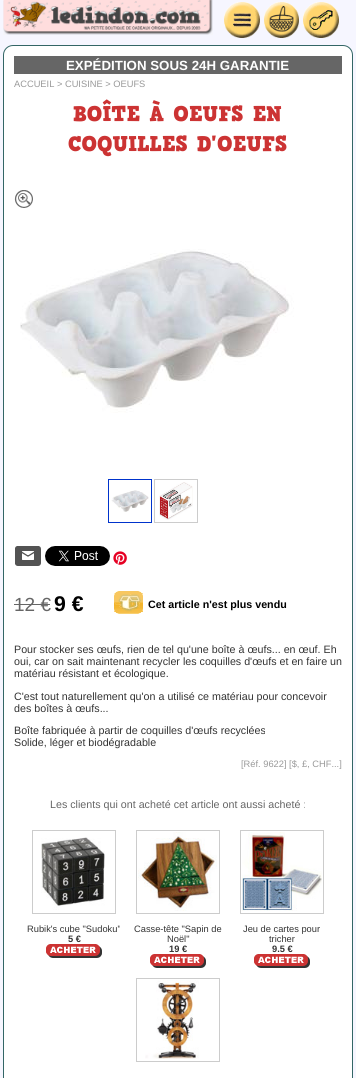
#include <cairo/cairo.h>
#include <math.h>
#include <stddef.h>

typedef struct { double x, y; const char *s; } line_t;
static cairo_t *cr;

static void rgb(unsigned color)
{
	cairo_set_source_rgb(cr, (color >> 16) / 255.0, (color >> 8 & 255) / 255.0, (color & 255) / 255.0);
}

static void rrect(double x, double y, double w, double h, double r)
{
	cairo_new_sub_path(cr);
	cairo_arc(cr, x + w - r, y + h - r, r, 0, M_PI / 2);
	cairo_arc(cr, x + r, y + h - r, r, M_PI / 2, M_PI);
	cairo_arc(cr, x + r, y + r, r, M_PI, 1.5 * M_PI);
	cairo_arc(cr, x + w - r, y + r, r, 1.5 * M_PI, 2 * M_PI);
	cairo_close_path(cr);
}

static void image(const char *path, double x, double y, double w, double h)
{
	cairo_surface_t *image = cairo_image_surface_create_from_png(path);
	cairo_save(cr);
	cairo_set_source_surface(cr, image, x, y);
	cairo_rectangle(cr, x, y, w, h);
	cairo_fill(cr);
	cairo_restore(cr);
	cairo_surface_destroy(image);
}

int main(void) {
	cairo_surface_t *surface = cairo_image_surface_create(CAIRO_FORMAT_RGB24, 356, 1078);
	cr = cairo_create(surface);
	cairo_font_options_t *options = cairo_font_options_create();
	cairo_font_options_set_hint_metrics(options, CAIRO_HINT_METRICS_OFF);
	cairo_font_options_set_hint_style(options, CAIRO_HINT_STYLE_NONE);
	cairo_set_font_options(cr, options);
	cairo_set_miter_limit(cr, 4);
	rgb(0xf6f6ff);
	cairo_paint(cr);
	image("img/1.png", 3, 0, 210, 35);
	image("img/2.png", 224, 2, 36, 36);
	image("img/3.png", 264, 2, 35, 36);
	image("img/4.png", 303, 2, 36, 36);
	rgb(0xffffff);
	rrect(3.5, 45.5, 349, 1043, 9.5);
	cairo_fill_preserve(cr);
	rgb(0x336666);
	cairo_set_line_width(cr, 1);
	cairo_stroke(cr);
	rgb(0x666666);
	cairo_rectangle(cr, 14, 56, 328, 18);
	cairo_fill(cr);
	image("img/5.png", 14, 190, 19, 18);
	image("img/6.png", 20, 249, 274, 164);
	cairo_rectangle(cr, 108.5, 479.5, 43, 43);
	rgb(0x0033cc);
	cairo_stroke(cr);
	image("img/7.png", 111, 490, 38, 22);
	cairo_rectangle(cr, 154.5, 479.5, 43, 43);
	rgb(0xcccccc);
	cairo_stroke(cr);
	image("img/8.png", 159, 482, 34, 38);
	image("img/9.png", 15, 546, 26, 20);
	image("img/10.png", 45, 546, 65, 20);
	image("img/11.png", 113, 551, 14, 14);
	rgb(0x666666);
	cairo_rectangle(cr, 14, 604, 36, 1);
	cairo_fill(cr);
	image("img/12.png", 114, 591, 29, 23);
	cairo_rectangle(cr, 32.5, 830.5, 83, 83);
	rgb(0xcccccc);
	cairo_stroke(cr);
	image("img/13.png", 41, 837, 64, 73);
	image("img/14.png", 46, 944, 56, 14);
	cairo_rectangle(cr, 136.5, 830.5, 83, 83);
	cairo_stroke(cr);
	image("img/15.png", 138, 832, 79, 79);
	image("img/14.png", 150, 954, 56, 14);
	cairo_rectangle(cr, 240.5, 830.5, 83, 83);
	cairo_stroke(cr);
	image("img/16.png", 242, 832, 80, 79);
	image("img/14.png", 254, 954, 56, 14);
	cairo_rectangle(cr, 136.5, 978.5, 83, 83);
	cairo_stroke(cr);
	image("img/17.png", 145, 980, 54, 79);
	cairo_select_font_face(cr, "Liberation Sans", CAIRO_FONT_SLANT_NORMAL, CAIRO_FONT_WEIGHT_BOLD);
	cairo_set_font_size(cr, 13.3);
	rgb(0xffffff);
	cairo_move_to(cr, 66, 70);
	cairo_show_text(cr, "EXPÉDITION SOUS 24H GARANTIE");
	cairo_select_font_face(cr, "Liberation Sans", CAIRO_FONT_SLANT_NORMAL, CAIRO_FONT_WEIGHT_NORMAL);
	cairo_set_font_size(cr, 9.3);
	rgb(0x999999);
	cairo_move_to(cr, 14, 87);
	cairo_show_text(cr, "ACCUEIL > CUISINE > OEUFS");
	cairo_select_font_face(cr, "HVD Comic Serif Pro", CAIRO_FONT_SLANT_NORMAL, CAIRO_FONT_WEIGHT_NORMAL);
	cairo_set_font_size(cr, 21.25);
	rgb(0xcc3333);
	cairo_move_to(cr, 73, 121);
	cairo_show_text(cr, "BOÎTE À OEUFS EN");
	cairo_move_to(cr, 68, 151);
	cairo_show_text(cr, "COQUILLES D'OEUFS");
	cairo_select_font_face(cr, "Liberation Sans", CAIRO_FONT_SLANT_NORMAL, CAIRO_FONT_WEIGHT_NORMAL);
	cairo_set_font_size(cr, 19);
	rgb(0x666666);
	cairo_move_to(cr, 14, 611);
	cairo_show_text(cr, "12 €");
	cairo_select_font_face(cr, "Liberation Sans", CAIRO_FONT_SLANT_NORMAL, CAIRO_FONT_WEIGHT_BOLD);
	cairo_set_font_size(cr, 21.25);
	rgb(0x000000);
	cairo_move_to(cr, 54, 611);
	cairo_show_text(cr, "9 €");
	cairo_set_font_size(cr, 10.7);
	cairo_move_to(cr, 148, 608);
	cairo_show_text(cr, "Cet article n'est plus vendu");
	cairo_select_font_face(cr, "Liberation Sans", CAIRO_FONT_SLANT_NORMAL, CAIRO_FONT_WEIGHT_NORMAL);
	rgb(0x333333);
	{
		static const line_t items[] = {
			{14, 653, "Pour stocker ses œufs, rien de tel qu'une boîte à œufs... en œuf. Eh"},
			{14, 665, "oui, car on sait maintenant recycler les coquilles d'œufs et en faire un"},
			{14, 677, "matériau résistant et écologique."},
			{14, 700, "C'est tout naturellement qu'on a utilisé ce matériau pour concevoir"},
			{14, 712, "des boîtes à œufs..."},
			{14, 734, "Boîte fabriquée à partir de coquilles d'œufs recyclées"},
			{14, 746, "Solide, léger et biodégradable"},
		};
		for (size_t i = 0; i < sizeof items / sizeof *items; i++) {
			cairo_move_to(cr, items[i].x, items[i].y);
			cairo_show_text(cr, items[i].s);
		}
	}
	cairo_set_font_size(cr, 9.3);
	rgb(0x999999);
	cairo_move_to(cr, 241, 767);
	cairo_show_text(cr, "[Réf. 9622] [$, £, CHF...]");
	cairo_set_font_size(cr, 10.7);
	rgb(0x666666);
	cairo_move_to(cr, 50, 808);
	cairo_show_text(cr, "Les clients qui ont acheté cet article ont aussi acheté :");
	cairo_set_font_size(cr, 9.3);
	rgb(0x333333);
	cairo_move_to(cr, 27, 932);
	cairo_show_text(cr, "Rubik's cube \"Sudoku\"");
	cairo_select_font_face(cr, "Liberation Sans", CAIRO_FONT_SLANT_NORMAL, CAIRO_FONT_WEIGHT_BOLD);
	cairo_move_to(cr, 68, 942);
	cairo_show_text(cr, "5 €");
	cairo_select_font_face(cr, "Liberation Sans", CAIRO_FONT_SLANT_NORMAL, CAIRO_FONT_WEIGHT_NORMAL);
	cairo_move_to(cr, 134, 932);
	cairo_show_text(cr, "Casse-tête \"Sapin de");
	cairo_move_to(cr, 167, 942);
	cairo_show_text(cr, "Noël\"");
	cairo_select_font_face(cr, "Liberation Sans", CAIRO_FONT_SLANT_NORMAL, CAIRO_FONT_WEIGHT_BOLD);
	cairo_move_to(cr, 169, 952);
	cairo_show_text(cr, "19 €");
	cairo_select_font_face(cr, "Liberation Sans", CAIRO_FONT_SLANT_NORMAL, CAIRO_FONT_WEIGHT_NORMAL);
	cairo_move_to(cr, 243, 932);
	cairo_show_text(cr, "Jeu de cartes pour");
	cairo_move_to(cr, 269, 942);
	cairo_show_text(cr, "tricher");
	cairo_select_font_face(cr, "Liberation Sans", CAIRO_FONT_SLANT_NORMAL, CAIRO_FONT_WEIGHT_BOLD);
	cairo_move_to(cr, 272, 952);
	cairo_show_text(cr, "9.5 €");
	cairo_surface_write_to_png(surface, "page.png");
	cairo_font_options_destroy(options);
	cairo_destroy(cr);
	cairo_surface_destroy(surface);
	return 0;
}
